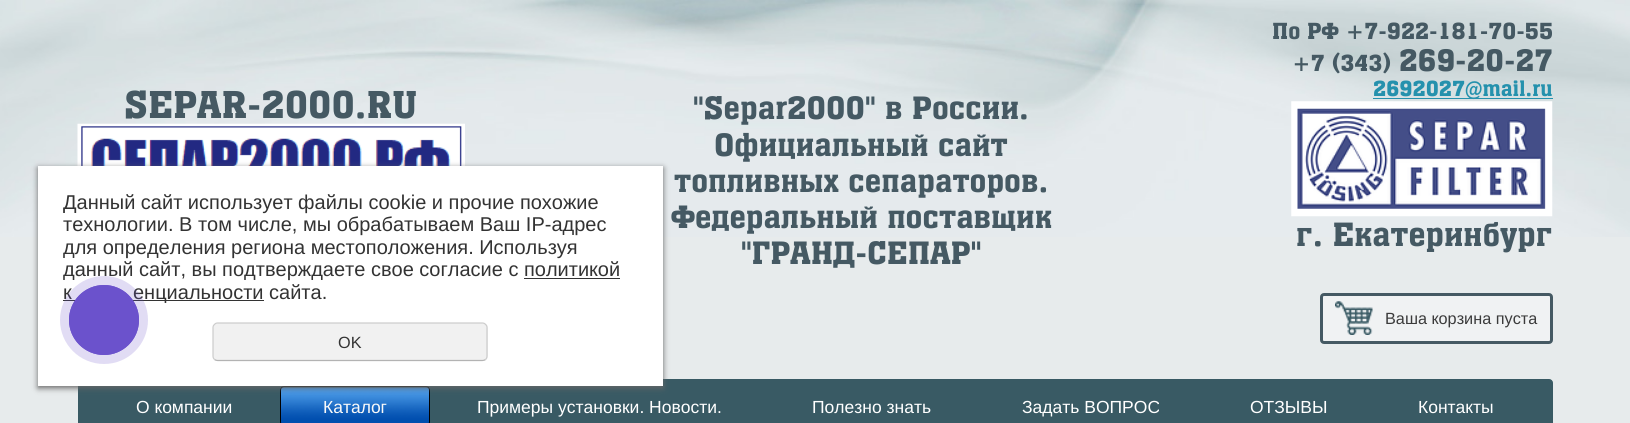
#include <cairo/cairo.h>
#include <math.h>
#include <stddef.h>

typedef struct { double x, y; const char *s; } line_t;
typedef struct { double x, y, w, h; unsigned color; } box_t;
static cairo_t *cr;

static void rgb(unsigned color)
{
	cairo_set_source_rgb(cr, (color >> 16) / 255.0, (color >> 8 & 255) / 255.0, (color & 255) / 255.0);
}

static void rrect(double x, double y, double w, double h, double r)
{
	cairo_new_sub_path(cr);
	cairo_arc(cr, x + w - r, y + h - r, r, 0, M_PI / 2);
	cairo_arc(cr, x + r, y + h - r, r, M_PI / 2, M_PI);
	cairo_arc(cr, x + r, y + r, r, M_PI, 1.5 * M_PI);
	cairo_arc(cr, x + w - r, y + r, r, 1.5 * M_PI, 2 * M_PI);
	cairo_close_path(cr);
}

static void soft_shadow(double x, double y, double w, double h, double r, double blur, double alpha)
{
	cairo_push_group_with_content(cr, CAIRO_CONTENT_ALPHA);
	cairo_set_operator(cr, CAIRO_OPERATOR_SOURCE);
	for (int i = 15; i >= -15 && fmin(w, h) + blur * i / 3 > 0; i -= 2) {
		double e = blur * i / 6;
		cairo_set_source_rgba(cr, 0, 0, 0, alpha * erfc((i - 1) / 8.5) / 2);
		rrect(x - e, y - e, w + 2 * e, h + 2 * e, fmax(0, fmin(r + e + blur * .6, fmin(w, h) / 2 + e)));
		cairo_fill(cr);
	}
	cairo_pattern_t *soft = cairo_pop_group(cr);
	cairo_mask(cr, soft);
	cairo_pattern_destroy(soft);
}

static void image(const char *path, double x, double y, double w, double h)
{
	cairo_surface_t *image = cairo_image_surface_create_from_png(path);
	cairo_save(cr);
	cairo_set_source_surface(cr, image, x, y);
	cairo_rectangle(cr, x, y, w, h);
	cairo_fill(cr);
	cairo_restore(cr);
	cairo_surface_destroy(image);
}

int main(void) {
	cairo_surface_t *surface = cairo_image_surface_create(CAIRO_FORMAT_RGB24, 1630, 423);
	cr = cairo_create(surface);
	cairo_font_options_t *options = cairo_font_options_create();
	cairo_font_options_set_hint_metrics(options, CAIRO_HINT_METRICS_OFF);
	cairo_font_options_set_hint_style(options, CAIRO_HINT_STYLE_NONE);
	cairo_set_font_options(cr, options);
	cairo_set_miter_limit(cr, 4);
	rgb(0xe7ebec);
	cairo_paint(cr);
	image("img/1.png", 0, 0, 1630, 237);
	image("img/2.png", 77, 123, 388, 43);
	rgb(0x2591ad);
	cairo_rectangle(cr, 1373, 98, 180, 1);
	cairo_fill(cr);
	image("img/3.png", 1291, 101, 262, 116);
	rgb(0xf0f2f3);
	rrect(1321.5, 294.5, 230, 48, 2.5);
	cairo_fill_preserve(cr);
	rgb(0x455963);
	cairo_set_line_width(cr, 3);
	cairo_stroke(cr);
	image("img/4.png", 1335, 301, 38, 34);
	rgb(0x395a64);
	rrect(78.5, 379.5, 1474, 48, 3.5);
	cairo_fill_preserve(cr);
	rgb(0x385963);
	cairo_set_line_width(cr, 1);
	cairo_stroke(cr);
	image("img/5.png", 280, 387, 150, 36);
	rrect(280.5, 386.5, 149, 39, 3.5);
	rgb(0x000000);
	cairo_stroke(cr);
	rgb(0x666666);
	soft_shadow(38, 168, 625, 220, 0, 3, 1);
	{
		static const box_t items[] = {
			{38, 166, 625, 220, 0xffffff},
			{63, 300, 201, 1, 0x333333},
			{524, 278, 96, 1, 0x333333},
		};
		for (size_t i = 0; i < sizeof items / sizeof *items; i++) {
			rgb(items[i].color);
			cairo_rectangle(cr, items[i].x, items[i].y, items[i].w, items[i].h);
			cairo_fill(cr);
		}
	}
	rgb(0xf1f1f1);
	rrect(213, 323, 275, 38, 5);
	cairo_fill(cr);
	cairo_new_path(cr);
	cairo_move_to(cr, 485.5, 359.5);
	cairo_curve_to(cr, 485, 360, 483.5, 360.5, 482.5, 360.5);
	cairo_line_to(cr, 217.5, 360.5);
	cairo_curve_to(cr, 216.5, 360.5, 215, 360, 214.5, 359.5);
	rgb(0xb3b3b3);
	cairo_set_line_width(cr, 1.2);
	cairo_stroke(cr);
	cairo_new_path(cr);
	cairo_move_to(cr, 214.5, 359.5);
	cairo_curve_to(cr, 213.5, 358.5, 213, 357.5, 213, 356);
	cairo_line_to(cr, 213, 327.5);
	cairo_curve_to(cr, 213, 326.5, 213.5, 325, 214.5, 324.5);
	cairo_curve_to(cr, 215, 323.5, 216.5, 323, 217.5, 323);
	cairo_line_to(cr, 482.5, 323);
	cairo_curve_to(cr, 483.5, 323, 485, 323.5, 485.5, 324.5);
	cairo_curve_to(cr, 486.5, 325, 487, 326.5, 487, 327.5);
	cairo_line_to(cr, 487, 356);
	cairo_curve_to(cr, 487, 357.5, 486.5, 358.5, 485.5, 359.5);
	rgb(0xcccccc);
	cairo_stroke(cr);
	cairo_select_font_face(cr, "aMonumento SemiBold", CAIRO_FONT_SLANT_NORMAL, CAIRO_FONT_WEIGHT_NORMAL);
	cairo_set_font_size(cr, 37.5);
	rgb(0x455963);
	cairo_move_to(cr, 124, 118);
	cairo_show_text(cr, "SEPAR-2000.RU");
	cairo_set_font_size(cr, 31.25);
	{
		static const line_t items[] = {
			{693, 119, "\"Separ2000\" в России."},
			{714, 156, "Официальный сайт"},
			{674, 192, "топливных сепараторов."},
			{671, 228, "Федеральный поставщик"},
			{741, 264, "\"ГРАНД-СЕПАР\""},
		};
		for (size_t i = 0; i < sizeof items / sizeof *items; i++) {
			cairo_move_to(cr, items[i].x, items[i].y);
			cairo_show_text(cr, items[i].s);
		}
	}
	cairo_set_font_size(cr, 22.5);
	cairo_move_to(cr, 1272, 39);
	cairo_show_text(cr, "По РФ +7-922-181-70-55");
	cairo_move_to(cr, 1292, 71);
	cairo_show_text(cr, "+7 (343)");
	cairo_set_font_size(cr, 30);
	cairo_move_to(cr, 1399, 71);
	cairo_show_text(cr, "269-20-27");
	cairo_set_font_size(cr, 21.1);
	rgb(0x2591ad);
	cairo_move_to(cr, 1373, 96);
	cairo_show_text(cr, "2692027@mail.ru");
	cairo_set_font_size(cr, 32.5);
	rgb(0x455963);
	cairo_move_to(cr, 1296, 246);
	cairo_show_text(cr, "г. Екатеринбург");
	cairo_select_font_face(cr, "Liberation Sans", CAIRO_FONT_SLANT_NORMAL, CAIRO_FONT_WEIGHT_NORMAL);
	cairo_set_font_size(cr, 16.25);
	rgb(0x3b3b3b);
	cairo_move_to(cr, 1385, 324);
	cairo_show_text(cr, "Ваша корзина пуста");
	cairo_set_font_size(cr, 17.5);
	rgb(0xffffff);
	cairo_move_to(cr, 136, 413);
	cairo_show_text(cr, "О компании");
	rgb(0xf9f9f9);
	cairo_move_to(cr, 323, 413);
	cairo_show_text(cr, "Каталог");
	rgb(0xffffff);
	{
		static const line_t items[] = {
			{477, 413, "Примеры установки. Новости."},
			{812, 413, "Полезно знать"},
			{1022, 413, "Задать ВОПРОС"},
			{1250, 413, "ОТЗЫВЫ"},
			{1418, 413, "Контакты"},
		};
		for (size_t i = 0; i < sizeof items / sizeof *items; i++) {
			cairo_move_to(cr, items[i].x, items[i].y);
			cairo_show_text(cr, items[i].s);
		}
	}
	cairo_set_font_size(cr, 20);
	rgb(0x333333);
	{
		static const line_t items[] = {
			{63, 209, "Данный сайт использует файлы cookie и прочие похожие"},
			{63, 231, "технологии. В том числе, мы обрабатываем Ваш IP-адрес"},
			{63, 254, "для определения региона местоположения. Используя"},
			{63, 276, "данный сайт, вы подтверждаете свое согласие с политикой"},
			{63, 299, "к"},
			{133, 299, "енциальности сайта."},
		};
		for (size_t i = 0; i < sizeof items / sizeof *items; i++) {
			cairo_move_to(cr, items[i].x, items[i].y);
			cairo_show_text(cr, items[i].s);
		}
	}
	cairo_set_font_size(cr, 16.25);
	cairo_move_to(cr, 338, 348);
	cairo_show_text(cr, "OK");
	cairo_set_source_rgba(cr, 0.42, 0.322, 0.8, 0.2);
	cairo_new_path(cr);
	cairo_arc(cr, 104, 320, 44, 0, 2 * M_PI);
	cairo_fill(cr);
	cairo_arc(cr, 104, 320, 34.5, 0, 2 * M_PI);
	rgb(0x6b52cc);
	cairo_set_line_width(cr, 1);
	cairo_stroke(cr);
	cairo_arc(cr, 104, 320, 35, 0, 2 * M_PI);
	cairo_fill(cr);
	cairo_surface_write_to_png(surface, "page.png");
	cairo_font_options_destroy(options);
	cairo_destroy(cr);
	cairo_surface_destroy(surface);
	return 0;
}
